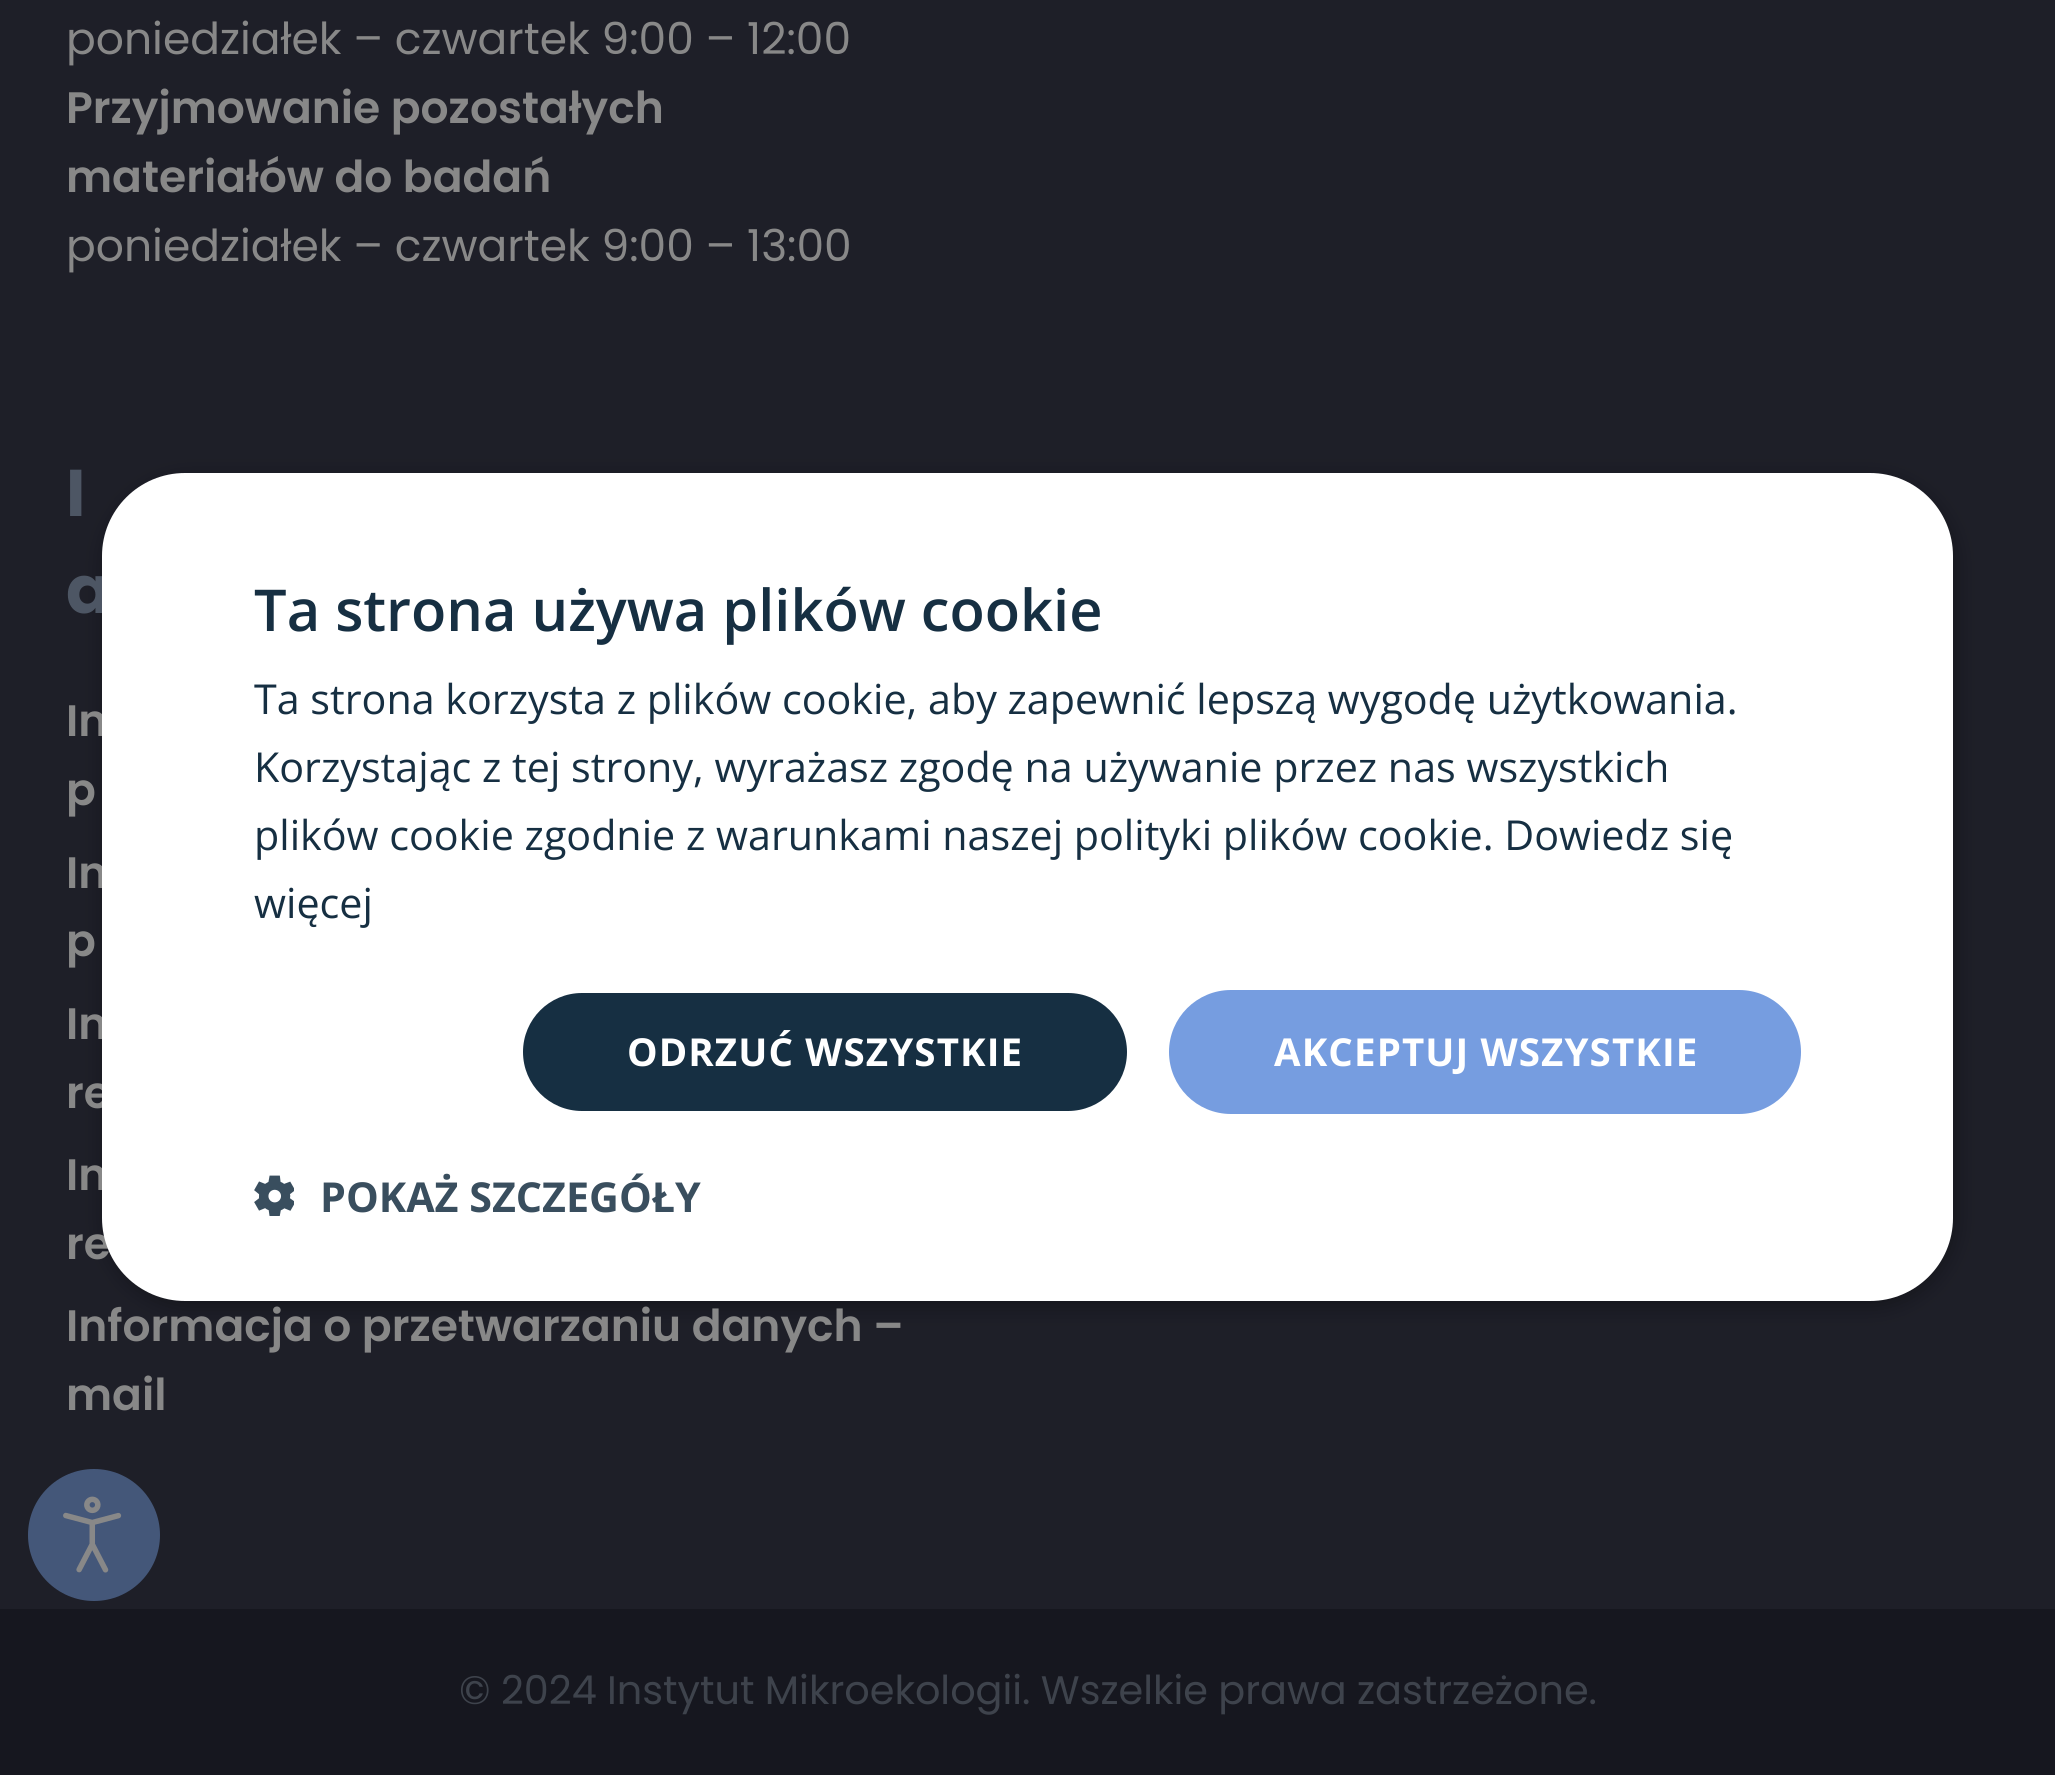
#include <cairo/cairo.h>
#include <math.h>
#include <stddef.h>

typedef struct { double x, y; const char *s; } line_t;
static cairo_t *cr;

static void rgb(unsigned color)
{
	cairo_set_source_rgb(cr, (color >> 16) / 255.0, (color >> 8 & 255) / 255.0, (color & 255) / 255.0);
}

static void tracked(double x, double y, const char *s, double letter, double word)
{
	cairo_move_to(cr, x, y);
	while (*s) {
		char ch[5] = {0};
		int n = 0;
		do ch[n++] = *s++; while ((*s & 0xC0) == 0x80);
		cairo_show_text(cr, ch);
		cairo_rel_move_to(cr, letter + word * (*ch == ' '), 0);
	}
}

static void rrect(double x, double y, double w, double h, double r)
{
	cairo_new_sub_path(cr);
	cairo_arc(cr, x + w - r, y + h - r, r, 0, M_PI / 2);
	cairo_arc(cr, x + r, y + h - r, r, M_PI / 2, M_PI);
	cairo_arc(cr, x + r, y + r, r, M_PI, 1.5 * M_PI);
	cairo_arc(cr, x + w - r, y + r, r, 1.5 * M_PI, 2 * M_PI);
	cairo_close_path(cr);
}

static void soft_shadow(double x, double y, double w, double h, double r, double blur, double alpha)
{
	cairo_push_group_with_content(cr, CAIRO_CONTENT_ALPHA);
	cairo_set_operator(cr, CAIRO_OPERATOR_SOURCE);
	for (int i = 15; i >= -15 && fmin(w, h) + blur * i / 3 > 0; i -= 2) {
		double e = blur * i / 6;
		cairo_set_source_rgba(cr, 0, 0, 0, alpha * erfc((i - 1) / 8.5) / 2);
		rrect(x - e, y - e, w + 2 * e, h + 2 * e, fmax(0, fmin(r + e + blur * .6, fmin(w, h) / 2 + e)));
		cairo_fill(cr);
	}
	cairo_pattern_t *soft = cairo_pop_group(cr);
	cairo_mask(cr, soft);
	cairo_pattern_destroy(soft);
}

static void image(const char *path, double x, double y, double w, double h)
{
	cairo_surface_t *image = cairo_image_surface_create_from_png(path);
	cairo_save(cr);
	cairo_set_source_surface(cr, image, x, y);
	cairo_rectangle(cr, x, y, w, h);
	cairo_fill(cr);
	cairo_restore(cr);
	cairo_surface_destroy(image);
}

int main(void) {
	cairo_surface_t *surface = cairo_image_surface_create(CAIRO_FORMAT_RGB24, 2055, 1775);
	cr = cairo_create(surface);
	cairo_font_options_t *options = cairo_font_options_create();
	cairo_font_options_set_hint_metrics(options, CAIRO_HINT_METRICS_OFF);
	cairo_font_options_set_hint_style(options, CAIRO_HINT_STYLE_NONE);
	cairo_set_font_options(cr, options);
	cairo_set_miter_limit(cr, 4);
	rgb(0x1e1f28);
	cairo_paint(cr);
	rgb(0x16171f);
	cairo_rectangle(cr, 0, 1609, 2055, 166);
	cairo_fill(cr);
	rgb(0x000000);
	soft_shadow(105, 479, 1850, 827, 83, 11, 0.35);
	rgb(0x445779);
	cairo_arc(cr, 94, 1535, 66, 0, 2 * M_PI);
	cairo_fill(cr);
	image("img/2.png", 63, 1496, 59, 77);
	cairo_select_font_face(cr, "Poppins", CAIRO_FONT_SLANT_NORMAL, CAIRO_FONT_WEIGHT_NORMAL);
	cairo_set_font_size(cr, 44);
	rgb(0x888888);
	cairo_move_to(cr, 66, 54);
	cairo_show_text(cr, "poniedziałek – czwartek 9:00 – 12:00");
	cairo_select_font_face(cr, "Poppins SemiBold", CAIRO_FONT_SLANT_NORMAL, CAIRO_FONT_WEIGHT_NORMAL);
	cairo_move_to(cr, 66, 123);
	cairo_show_text(cr, "Przyjmowanie pozostałych");
	cairo_move_to(cr, 66, 192);
	cairo_show_text(cr, "materiałów do badań");
	cairo_select_font_face(cr, "Poppins", CAIRO_FONT_SLANT_NORMAL, CAIRO_FONT_WEIGHT_NORMAL);
	cairo_move_to(cr, 66, 261);
	cairo_show_text(cr, "poniedziałek – czwartek 9:00 – 13:00");
	cairo_select_font_face(cr, "Poppins", CAIRO_FONT_SLANT_NORMAL, CAIRO_FONT_WEIGHT_BOLD);
	cairo_set_font_size(cr, 66);
	rgb(0x4d5664);
	cairo_move_to(cr, 66, 516);
	cairo_show_text(cr, "I");
	cairo_move_to(cr, 66, 613);
	cairo_show_text(cr, "a");
	cairo_select_font_face(cr, "Poppins SemiBold", CAIRO_FONT_SLANT_NORMAL, CAIRO_FONT_WEIGHT_NORMAL);
	cairo_set_font_size(cr, 44);
	rgb(0x888888);
	{
		static const line_t items[] = {
			{66, 736, "In"},
			{66, 805, "p"},
			{66, 888, "In"},
			{66, 956, "p"},
			{66, 1039, "In"},
			{66, 1108, "re"},
			{66, 1190, "In"},
			{66, 1259, "re"},
			{66, 1341, "Informacja o przetwarzaniu danych –"},
			{66, 1410, "mail"},
		};
		for (size_t i = 0; i < sizeof items / sizeof *items; i++) {
			cairo_move_to(cr, items[i].x, items[i].y);
			cairo_show_text(cr, items[i].s);
		}
	}
	cairo_select_font_face(cr, "Poppins", CAIRO_FONT_SLANT_NORMAL, CAIRO_FONT_WEIGHT_NORMAL);
	cairo_set_font_size(cr, 39.8);
	rgb(0x3e434c);
	tracked(459, 1704, "© 2024 Instytut Mikroekologii. Wszelkie prawa zastrzeżone.", 0, -0.25);
	rgb(0xffffff);
	rrect(102, 473, 1851, 828, 83);
	cairo_fill(cr);
	cairo_select_font_face(cr, "Open Sans SemiBold", CAIRO_FONT_SLANT_NORMAL, CAIRO_FONT_WEIGHT_NORMAL);
	cairo_set_font_size(cr, 57.75);
	rgb(0x162f42);
	cairo_move_to(cr, 254, 631);
	cairo_show_text(cr, "Ta strona używa plików cookie");
	cairo_select_font_face(cr, "Open Sans", CAIRO_FONT_SLANT_NORMAL, CAIRO_FONT_WEIGHT_NORMAL);
	cairo_set_font_size(cr, 41.25);
	{
		static const line_t items[] = {
			{254, 714, "Ta strona korzysta z plików cookie, aby zapewnić lepszą wygodę użytkowania."},
			{254, 782, "Korzystając z tej strony, wyrażasz zgodę na używanie przez nas wszystkich"},
			{254, 850, "plików cookie zgodnie z warunkami naszej polityki plików cookie. Dowiedz się"},
			{254, 918, "więcej"},
		};
		for (size_t i = 0; i < sizeof items / sizeof *items; i++) {
			cairo_move_to(cr, items[i].x, items[i].y);
			cairo_show_text(cr, items[i].s);
		}
	}
	rrect(521.5, 991.5, 607, 121, 60.5);
	cairo_fill_preserve(cr);
	rgb(0xffffff);
	cairo_set_line_width(cr, 3);
	cairo_stroke(cr);
	cairo_select_font_face(cr, "Open Sans", CAIRO_FONT_SLANT_NORMAL, CAIRO_FONT_WEIGHT_BOLD);
	cairo_set_font_size(cr, 38.5);
	tracked(627, 1066, "ODRZUĆ WSZYSTKIE", 1.1, 0);
	rgb(0x769de0);
	rrect(1169, 990, 632, 124, 62);
	cairo_fill(cr);
	rgb(0xffffff);
	tracked(1274, 1066, "AKCEPTUJ WSZYSTKIE", 1.1, 0);
	image("img/1.png", 254, 1175, 40, 41);
	cairo_set_font_size(cr, 41.25);
	rgb(0x394e5e);
	cairo_move_to(cr, 320, 1212);
	cairo_show_text(cr, "POKAŻ SZCZEGÓŁY");
	cairo_surface_write_to_png(surface, "page.png");
	cairo_font_options_destroy(options);
	cairo_destroy(cr);
	cairo_surface_destroy(surface);
	return 0;
}
